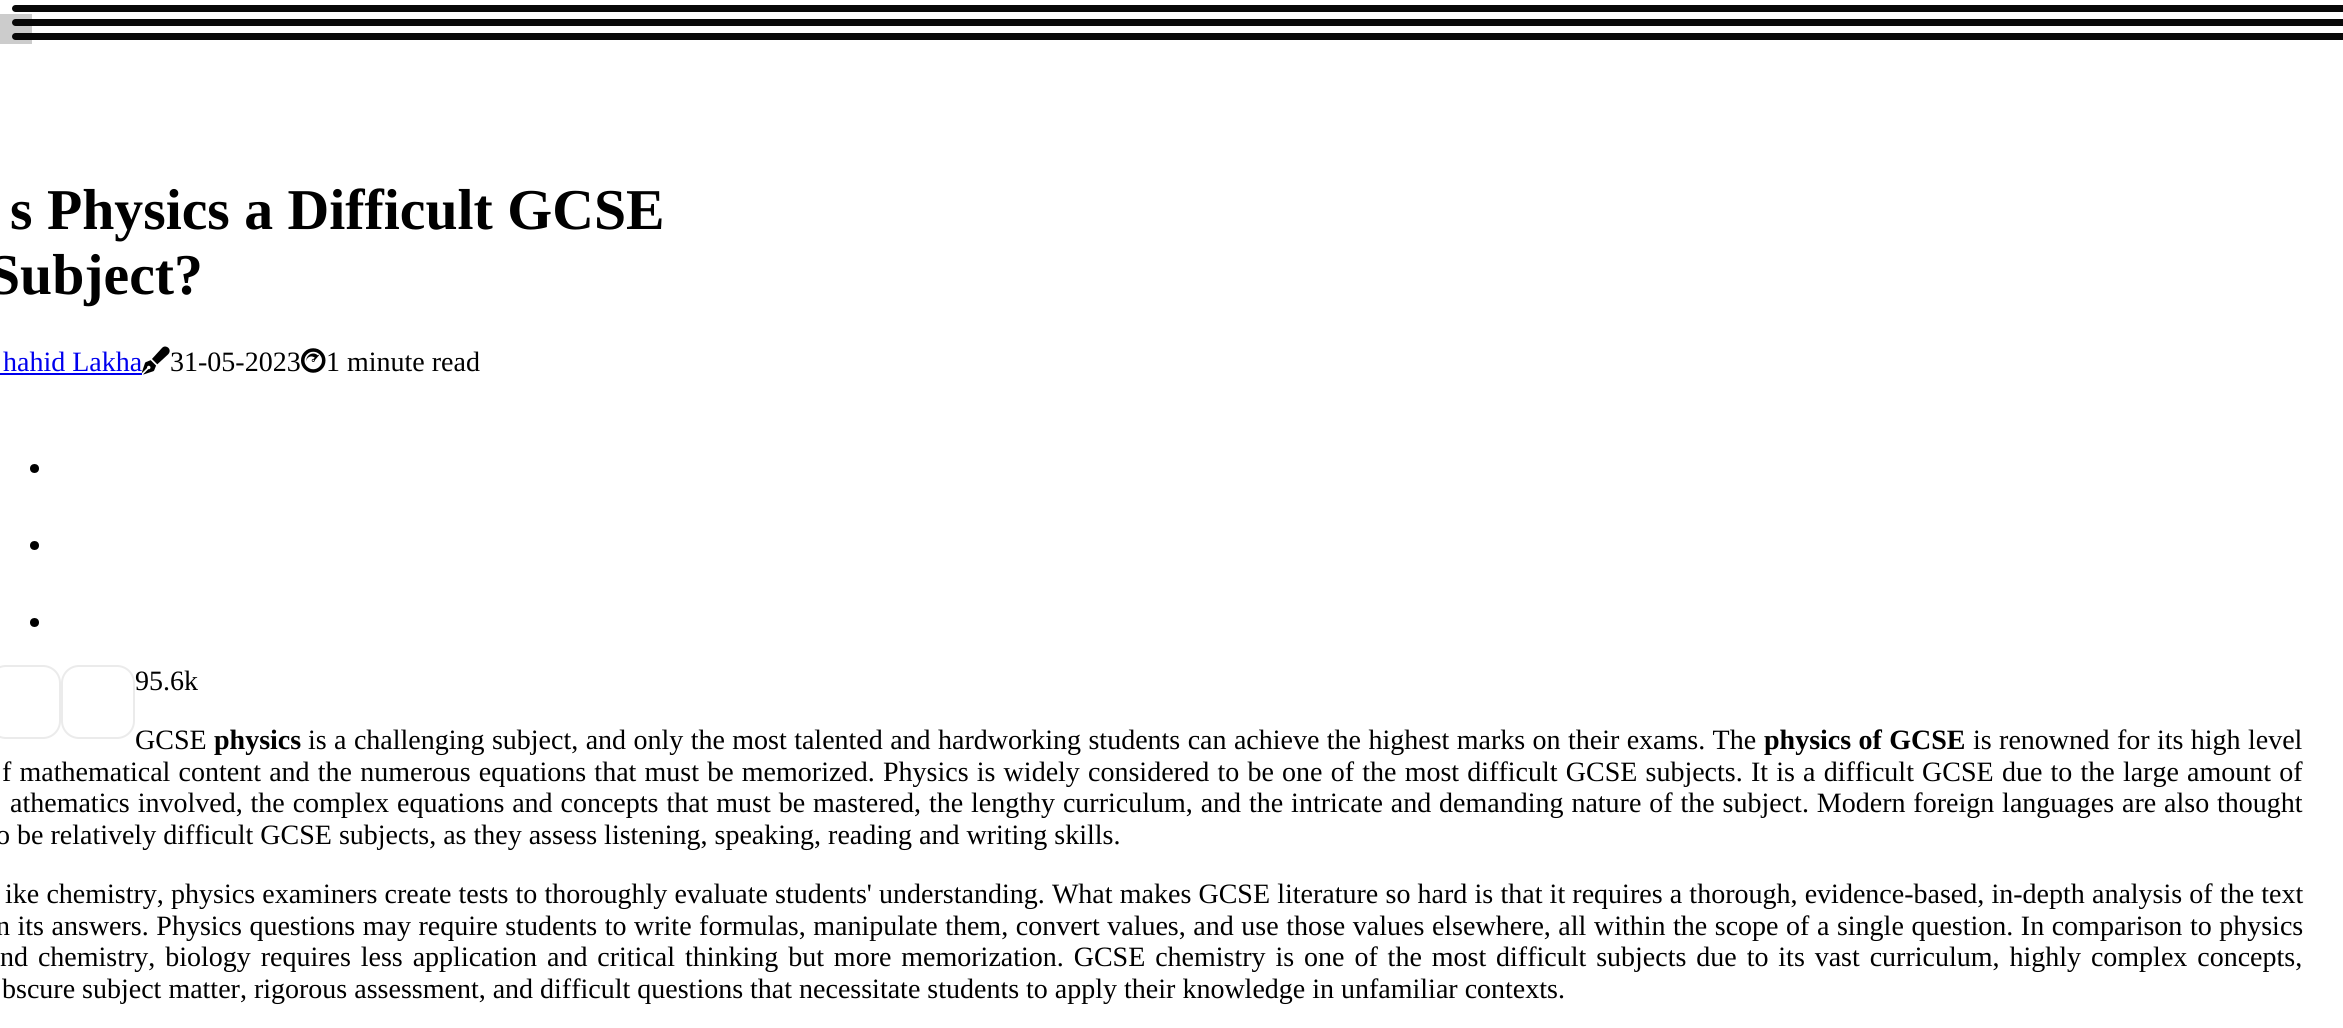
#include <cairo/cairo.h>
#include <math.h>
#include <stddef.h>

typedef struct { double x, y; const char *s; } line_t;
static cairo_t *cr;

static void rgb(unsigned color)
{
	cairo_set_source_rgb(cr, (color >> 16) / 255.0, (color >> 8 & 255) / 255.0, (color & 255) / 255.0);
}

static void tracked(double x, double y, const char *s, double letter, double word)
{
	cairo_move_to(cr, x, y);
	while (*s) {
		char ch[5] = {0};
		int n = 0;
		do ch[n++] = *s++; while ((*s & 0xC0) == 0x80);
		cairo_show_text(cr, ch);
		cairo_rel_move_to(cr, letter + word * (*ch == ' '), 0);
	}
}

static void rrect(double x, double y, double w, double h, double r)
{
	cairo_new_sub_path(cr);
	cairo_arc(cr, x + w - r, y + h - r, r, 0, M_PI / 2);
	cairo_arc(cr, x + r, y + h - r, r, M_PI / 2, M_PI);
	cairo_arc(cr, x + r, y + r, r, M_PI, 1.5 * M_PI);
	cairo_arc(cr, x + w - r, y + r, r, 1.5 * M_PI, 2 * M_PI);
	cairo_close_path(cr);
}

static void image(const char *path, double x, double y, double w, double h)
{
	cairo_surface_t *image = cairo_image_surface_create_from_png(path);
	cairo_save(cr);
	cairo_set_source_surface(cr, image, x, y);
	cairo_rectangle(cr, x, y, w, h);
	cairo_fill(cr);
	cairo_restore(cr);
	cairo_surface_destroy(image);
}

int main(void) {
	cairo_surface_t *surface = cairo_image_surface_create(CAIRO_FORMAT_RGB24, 2343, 1028);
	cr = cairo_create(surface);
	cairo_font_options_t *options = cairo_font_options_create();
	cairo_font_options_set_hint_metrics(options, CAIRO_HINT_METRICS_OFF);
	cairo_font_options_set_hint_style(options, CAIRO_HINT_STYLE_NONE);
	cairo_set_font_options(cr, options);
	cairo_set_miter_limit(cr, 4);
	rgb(0xffffff);
	cairo_paint(cr);
	rgb(0x080808);
	rrect(12, 5, 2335, 7, 3.5);
	cairo_fill(cr);
	rgb(0xcccccc);
	cairo_rectangle(cr, 0, 14, 32, 30);
	cairo_fill(cr);
	rgb(0x080808);
	rrect(12, 19, 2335, 7, 3.5);
	cairo_fill(cr);
	rrect(12, 33, 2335, 7, 3.5);
	cairo_fill(cr);
	rgb(0x0000ee);
	cairo_rectangle(cr, 0, 373, 142, 2);
	cairo_fill(cr);
	image("img/2.png", 301, 348, 25, 25);
	rgb(0x000000);
	cairo_arc(cr, 34.5, 468.5, 4.5, 0, 2 * M_PI);
	cairo_fill(cr);
	cairo_arc(cr, 34.5, 545.5, 4.5, 0, 2 * M_PI);
	cairo_fill(cr);
	cairo_arc(cr, 34.5, 622.5, 4.5, 0, 2 * M_PI);
	cairo_fill(cr);
	rrect(62, 666, 72, 72, 17);
	rgb(0xebebeb);
	cairo_stroke(cr);
	rrect(-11, 666, 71, 72, 17);
	cairo_stroke(cr);
	cairo_select_font_face(cr, "Liberation Serif", CAIRO_FONT_SLANT_NORMAL, CAIRO_FONT_WEIGHT_BOLD);
	cairo_set_font_size(cr, 57.75);
	rgb(0x000000);
	cairo_move_to(cr, 10, 229);
	cairo_show_text(cr, "s Physics a Difficult GCSE");
	cairo_move_to(cr, -12, 294);
	cairo_show_text(cr, "Subject?");
	cairo_select_font_face(cr, "Liberation Serif", CAIRO_FONT_SLANT_NORMAL, CAIRO_FONT_WEIGHT_NORMAL);
	cairo_set_font_size(cr, 28);
	rgb(0x0000ee);
	cairo_move_to(cr, 3, 371);
	cairo_show_text(cr, "hahid Lakha");
	image("img/1.png", 141, 346, 29, 29);
	rgb(0x000000);
	{
		static const line_t items[] = {
			{170, 371, "31-05-2023"},
			{326, 371, "1 minute read"},
			{135, 690, "95.6k"},
			{135, 749, "GCSE"},
		};
		for (size_t i = 0; i < sizeof items / sizeof *items; i++) {
			cairo_move_to(cr, items[i].x, items[i].y);
			cairo_show_text(cr, items[i].s);
		}
	}
	cairo_select_font_face(cr, "Liberation Serif", CAIRO_FONT_SLANT_NORMAL, CAIRO_FONT_WEIGHT_BOLD);
	cairo_move_to(cr, 214, 749);
	cairo_show_text(cr, "physics");
	cairo_select_font_face(cr, "Liberation Serif", CAIRO_FONT_SLANT_NORMAL, CAIRO_FONT_WEIGHT_NORMAL);
	tracked(308, 749, "is a challenging subject, and only the most talented and hardworking students can achieve the highest marks on their exams. The", 0, 0.4);
	cairo_select_font_face(cr, "Liberation Serif", CAIRO_FONT_SLANT_NORMAL, CAIRO_FONT_WEIGHT_BOLD);
	tracked(1764, 749, "physics of GCSE", 0, 0.4);
	cairo_select_font_face(cr, "Liberation Serif", CAIRO_FONT_SLANT_NORMAL, CAIRO_FONT_WEIGHT_NORMAL);
	tracked(1973, 749, "is renowned for its high level", 0, 0.4);
	tracked(2, 781, "f mathematical content and the numerous equations that must be memorized. Physics is widely considered to be one of the most difficult GCSE subjects. It is a difficult GCSE due to the large amount of", 0, 1.2);
	tracked(10, 812, "athematics involved, the complex equations and concepts that must be mastered, the lengthy curriculum, and the intricate and demanding nature of the subject. Modern foreign languages are also thought", 0, 0.9);
	cairo_move_to(cr, -4, 844);
	cairo_show_text(cr, "o be relatively difficult GCSE subjects, as they assess listening, speaking, reading and writing skills.");
	tracked(5, 903, "ike chemistry, physics examiners create tests to thoroughly evaluate students' understanding. What makes GCSE literature so hard is that it requires a thorough, evidence-based, in-depth analysis of the text", 0, 0.2);
	tracked(-4, 935, "n its answers. Physics questions may require students to write formulas, manipulate them, convert values, and use those values elsewhere, all within the scope of a single question. In comparison to physics", 0, 0.55);
	tracked(0, 966, "nd chemistry, biology requires less application and critical thinking but more memorization. GCSE chemistry is one of the most difficult subjects due to its vast curriculum, highly complex concepts,", 0, 2.9);
	cairo_move_to(cr, 2, 998);
	cairo_show_text(cr, "bscure subject matter, rigorous assessment, and difficult questions that necessitate students to apply their knowledge in unfamiliar contexts.");
	cairo_surface_write_to_png(surface, "page.png");
	cairo_font_options_destroy(options);
	cairo_destroy(cr);
	cairo_surface_destroy(surface);
	return 0;
}
